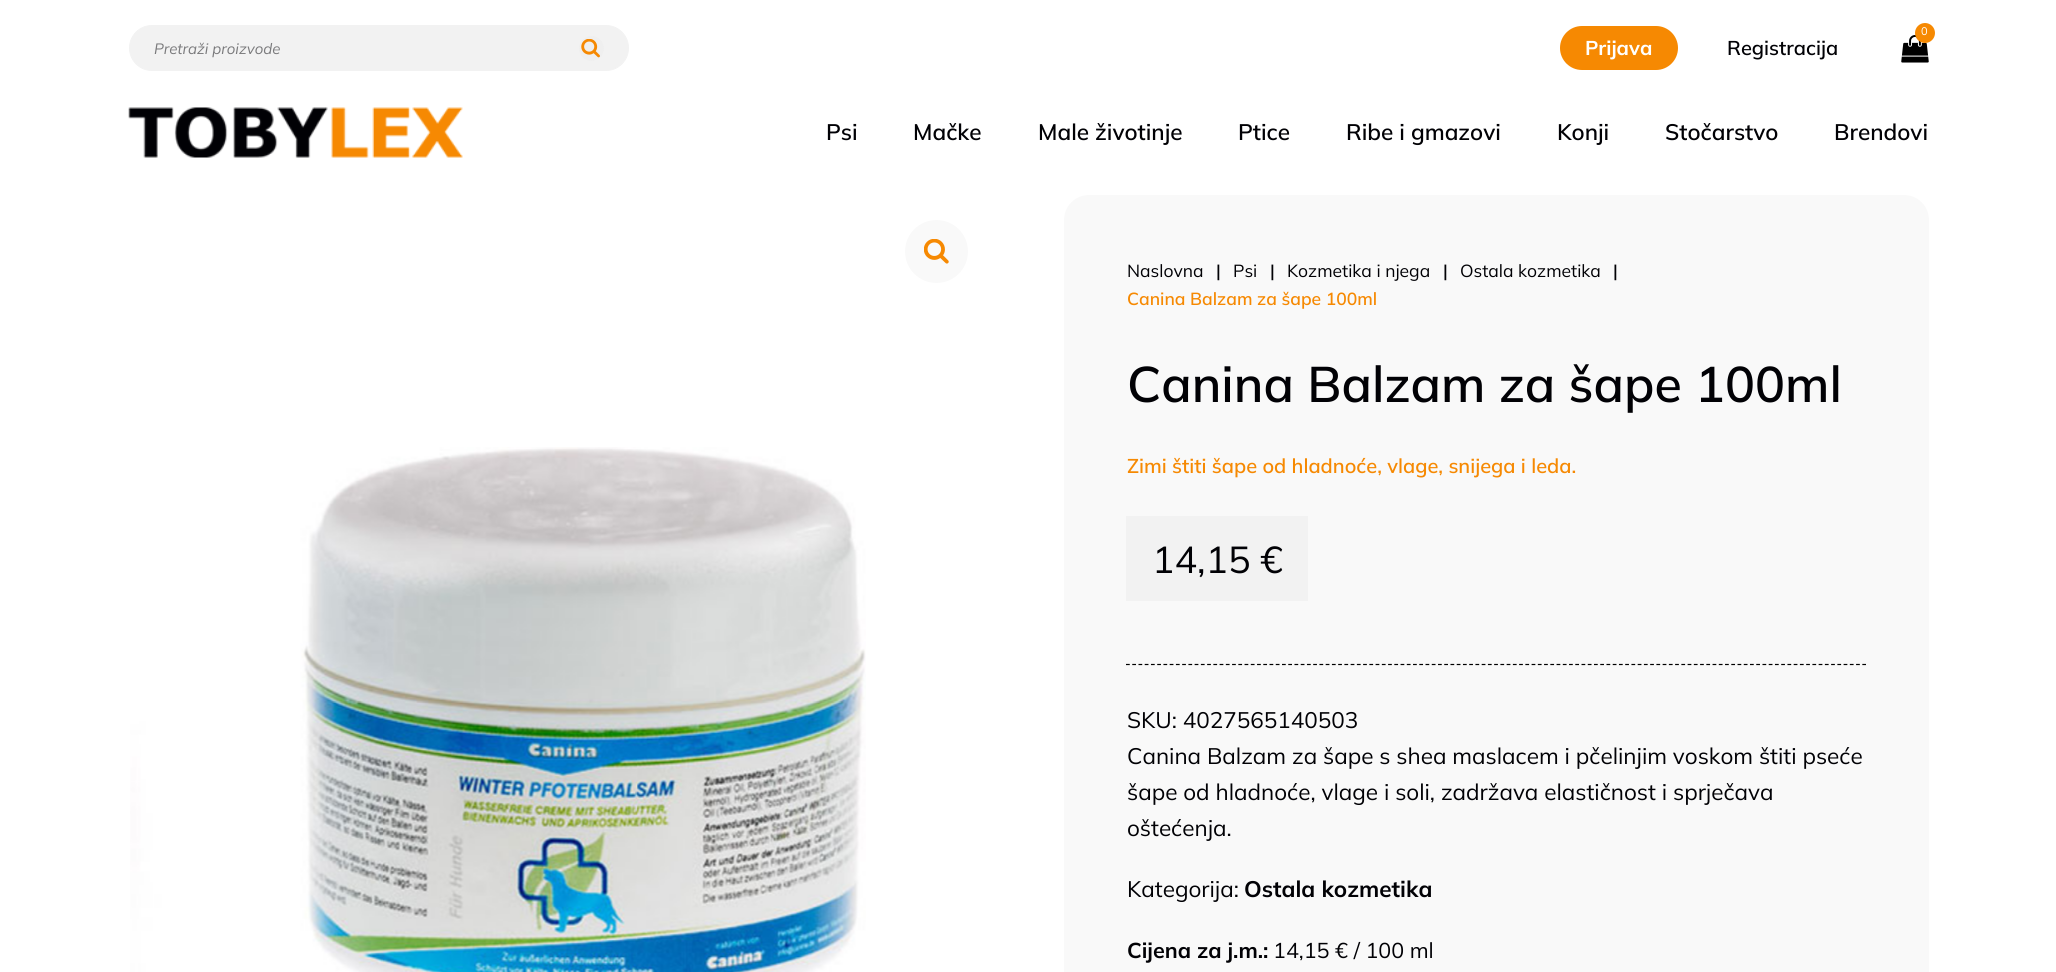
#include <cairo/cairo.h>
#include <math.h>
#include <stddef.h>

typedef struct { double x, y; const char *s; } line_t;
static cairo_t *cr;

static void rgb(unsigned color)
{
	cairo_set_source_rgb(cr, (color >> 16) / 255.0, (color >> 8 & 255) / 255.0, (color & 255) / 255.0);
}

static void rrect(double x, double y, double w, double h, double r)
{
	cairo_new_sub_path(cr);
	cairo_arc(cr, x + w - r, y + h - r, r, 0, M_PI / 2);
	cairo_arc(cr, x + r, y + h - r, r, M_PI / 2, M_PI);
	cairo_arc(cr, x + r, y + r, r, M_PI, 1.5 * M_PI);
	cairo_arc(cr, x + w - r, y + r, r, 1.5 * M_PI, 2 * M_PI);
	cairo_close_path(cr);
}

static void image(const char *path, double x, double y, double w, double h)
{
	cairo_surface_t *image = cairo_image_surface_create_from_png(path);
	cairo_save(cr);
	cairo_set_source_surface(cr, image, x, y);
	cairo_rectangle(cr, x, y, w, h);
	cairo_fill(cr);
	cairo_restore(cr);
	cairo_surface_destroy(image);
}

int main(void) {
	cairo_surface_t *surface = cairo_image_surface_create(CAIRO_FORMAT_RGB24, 2056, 972);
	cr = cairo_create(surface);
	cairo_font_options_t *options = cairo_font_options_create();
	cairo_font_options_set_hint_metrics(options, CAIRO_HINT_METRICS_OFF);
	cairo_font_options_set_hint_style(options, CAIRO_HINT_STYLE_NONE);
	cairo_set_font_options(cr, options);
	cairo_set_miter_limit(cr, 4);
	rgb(0xffffff);
	cairo_paint(cr);
	image("img/1.png", 1901, 35, 28, 28);
	rgb(0xf68902);
	cairo_arc(cr, 1925, 33, 10, 0, 2 * M_PI);
	cairo_fill(cr);
	rgb(0xf2f2f2);
	rrect(129.5, 25.5, 499, 45, 22.5);
	cairo_fill_preserve(cr);
	cairo_set_line_width(cr, 1);
	cairo_stroke(cr);
	rgb(0xefefef);
	cairo_arc(cr, 591.5, 48.5, 12.5, 0, 2 * M_PI);
	cairo_fill(cr);
	image("img/2.png", 581, 39, 19, 19);
	rgb(0xf68902);
	rrect(1560, 26, 118, 44, 22);
	cairo_fill(cr);
	image("img/3.png", 128, 107, 335, 51);
	rgb(0xf9f9f9);
	cairo_arc(cr, 936.5, 251.5, 31.5, 0, 2 * M_PI);
	cairo_fill(cr);
	image("img/4.png", 924, 239, 25, 25);
	image("img/5.png", 130, 447, 736, 525);
	rrect(1064, 195, 865, 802, 25);
	cairo_fill(cr);
	rgb(0xf2f2f2);
	cairo_rectangle(cr, 1126, 516, 182, 85);
	cairo_fill(cr);
	cairo_new_path(cr);
	cairo_move_to(cr, 1126, 664.5);
	cairo_line_to(cr, 1866, 664.5);
	rgb(0x000000);
	cairo_set_line_width(cr, 1.2);
	cairo_set_dash(cr, (double[]){3.75, 2.49}, 2, 0);
	cairo_stroke(cr);
	cairo_select_font_face(cr, "Mulish", CAIRO_FONT_SLANT_NORMAL, CAIRO_FONT_WEIGHT_NORMAL);
	cairo_set_font_size(cr, 11);
	rgb(0xffffff);
	cairo_move_to(cr, 1921, 35);
	cairo_show_text(cr, "0");
	cairo_select_font_face(cr, "Mulish", CAIRO_FONT_SLANT_ITALIC, CAIRO_FONT_WEIGHT_NORMAL);
	cairo_set_font_size(cr, 15);
	rgb(0x7a7a7c);
	cairo_move_to(cr, 154, 54);
	cairo_show_text(cr, "Pretraži proizvode");
	cairo_select_font_face(cr, "Mulish", CAIRO_FONT_SLANT_NORMAL, CAIRO_FONT_WEIGHT_BOLD);
	cairo_set_font_size(cr, 20);
	rgb(0xffffff);
	cairo_move_to(cr, 1585, 55);
	cairo_show_text(cr, "Prijava");
	cairo_select_font_face(cr, "Mulish SemiBold", CAIRO_FONT_SLANT_NORMAL, CAIRO_FONT_WEIGHT_NORMAL);
	rgb(0x010105);
	cairo_move_to(cr, 1727, 55);
	cairo_show_text(cr, "Registracija");
	cairo_set_font_size(cr, 22.5);
	{
		static const line_t items[] = {
			{826, 140, "Psi"},
			{913, 140, "Mačke"},
			{1038, 140, "Male životinje"},
			{1238, 140, "Ptice"},
			{1346, 140, "Ribe i gmazovi"},
			{1557, 140, "Konji"},
			{1665, 140, "Stočarstvo"},
			{1834, 140, "Brendovi"},
		};
		for (size_t i = 0; i < sizeof items / sizeof *items; i++) {
			cairo_move_to(cr, items[i].x, items[i].y);
			cairo_show_text(cr, items[i].s);
		}
	}
	cairo_select_font_face(cr, "Mulish", CAIRO_FONT_SLANT_NORMAL, CAIRO_FONT_WEIGHT_NORMAL);
	cairo_set_font_size(cr, 17.5);
	cairo_move_to(cr, 1127, 277);
	cairo_show_text(cr, "Naslovna");
	cairo_select_font_face(cr, "Mulish SemiBold", CAIRO_FONT_SLANT_NORMAL, CAIRO_FONT_WEIGHT_NORMAL);
	cairo_move_to(cr, 1216, 277);
	cairo_show_text(cr, "|");
	cairo_select_font_face(cr, "Mulish", CAIRO_FONT_SLANT_NORMAL, CAIRO_FONT_WEIGHT_NORMAL);
	cairo_move_to(cr, 1233, 277);
	cairo_show_text(cr, "Psi");
	cairo_select_font_face(cr, "Mulish SemiBold", CAIRO_FONT_SLANT_NORMAL, CAIRO_FONT_WEIGHT_NORMAL);
	cairo_move_to(cr, 1270, 277);
	cairo_show_text(cr, "|");
	cairo_select_font_face(cr, "Mulish", CAIRO_FONT_SLANT_NORMAL, CAIRO_FONT_WEIGHT_NORMAL);
	cairo_move_to(cr, 1287, 277);
	cairo_show_text(cr, "Kozmetika i njega");
	cairo_select_font_face(cr, "Mulish SemiBold", CAIRO_FONT_SLANT_NORMAL, CAIRO_FONT_WEIGHT_NORMAL);
	cairo_move_to(cr, 1443, 277);
	cairo_show_text(cr, "|");
	cairo_select_font_face(cr, "Mulish", CAIRO_FONT_SLANT_NORMAL, CAIRO_FONT_WEIGHT_NORMAL);
	cairo_move_to(cr, 1460, 277);
	cairo_show_text(cr, "Ostala kozmetika");
	cairo_select_font_face(cr, "Mulish SemiBold", CAIRO_FONT_SLANT_NORMAL, CAIRO_FONT_WEIGHT_NORMAL);
	cairo_move_to(cr, 1613, 277);
	cairo_show_text(cr, "|");
	rgb(0xf68902);
	cairo_move_to(cr, 1127, 305);
	cairo_show_text(cr, "Canina Balzam za šape 100ml");
	cairo_set_font_size(cr, 50);
	rgb(0x010105);
	cairo_move_to(cr, 1127, 402);
	cairo_show_text(cr, "Canina Balzam za šape 100ml");
	cairo_set_font_size(cr, 20);
	rgb(0xf68902);
	cairo_move_to(cr, 1127, 473);
	cairo_show_text(cr, "Zimi štiti šape od hladnoće, vlage, snijega i leda.");
	cairo_select_font_face(cr, "Mulish", CAIRO_FONT_SLANT_NORMAL, CAIRO_FONT_WEIGHT_NORMAL);
	cairo_set_font_size(cr, 37.5);
	rgb(0x010105);
	cairo_move_to(cr, 1152, 573);
	cairo_show_text(cr, "14,15 €");
	cairo_set_font_size(cr, 22.5);
	{
		static const line_t items[] = {
			{1127, 728, "SKU: 4027565140503"},
			{1127, 764, "Canina Balzam za šape s shea maslacem i pčelinjim voskom štiti pseće"},
			{1127, 800, "šape od hladnoće, vlage i soli, zadržava elastičnost i sprječava"},
			{1127, 836, "oštećenja."},
			{1127, 897, "Kategorija:"},
		};
		for (size_t i = 0; i < sizeof items / sizeof *items; i++) {
			cairo_move_to(cr, items[i].x, items[i].y);
			cairo_show_text(cr, items[i].s);
		}
	}
	cairo_select_font_face(cr, "Mulish", CAIRO_FONT_SLANT_NORMAL, CAIRO_FONT_WEIGHT_BOLD);
	cairo_move_to(cr, 1244, 897);
	cairo_show_text(cr, "Ostala kozmetika");
	cairo_set_font_size(cr, 21.5);
	cairo_move_to(cr, 1127, 958);
	cairo_show_text(cr, "Cijena za j.m.:");
	cairo_select_font_face(cr, "Mulish", CAIRO_FONT_SLANT_NORMAL, CAIRO_FONT_WEIGHT_NORMAL);
	cairo_move_to(cr, 1273, 958);
	cairo_show_text(cr, "14,15 € / 100 ml");
	cairo_surface_write_to_png(surface, "page.png");
	cairo_font_options_destroy(options);
	cairo_destroy(cr);
	cairo_surface_destroy(surface);
	return 0;
}
